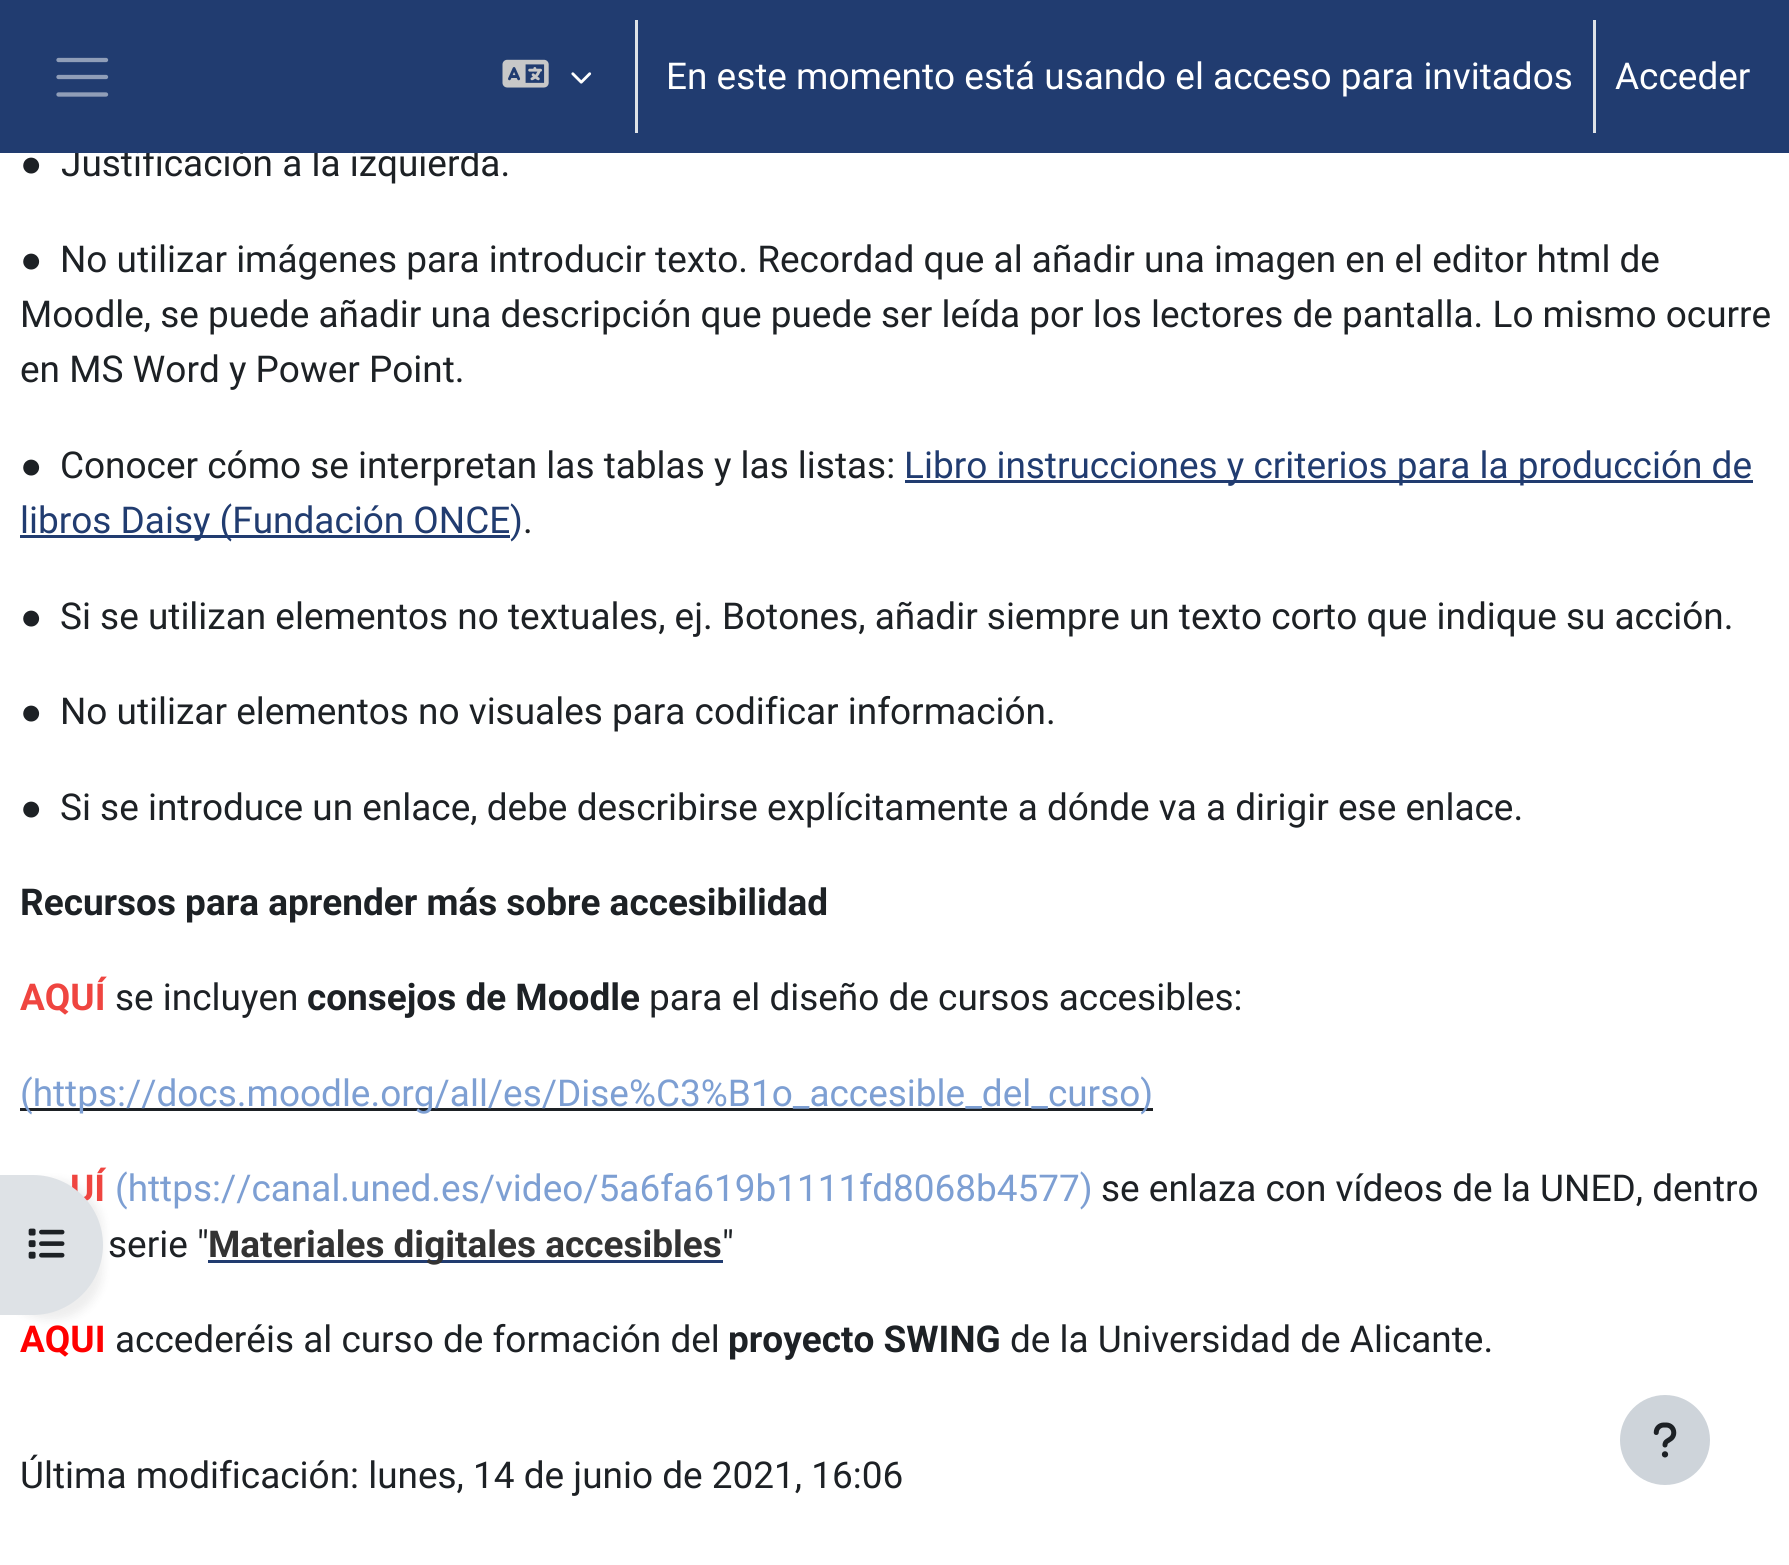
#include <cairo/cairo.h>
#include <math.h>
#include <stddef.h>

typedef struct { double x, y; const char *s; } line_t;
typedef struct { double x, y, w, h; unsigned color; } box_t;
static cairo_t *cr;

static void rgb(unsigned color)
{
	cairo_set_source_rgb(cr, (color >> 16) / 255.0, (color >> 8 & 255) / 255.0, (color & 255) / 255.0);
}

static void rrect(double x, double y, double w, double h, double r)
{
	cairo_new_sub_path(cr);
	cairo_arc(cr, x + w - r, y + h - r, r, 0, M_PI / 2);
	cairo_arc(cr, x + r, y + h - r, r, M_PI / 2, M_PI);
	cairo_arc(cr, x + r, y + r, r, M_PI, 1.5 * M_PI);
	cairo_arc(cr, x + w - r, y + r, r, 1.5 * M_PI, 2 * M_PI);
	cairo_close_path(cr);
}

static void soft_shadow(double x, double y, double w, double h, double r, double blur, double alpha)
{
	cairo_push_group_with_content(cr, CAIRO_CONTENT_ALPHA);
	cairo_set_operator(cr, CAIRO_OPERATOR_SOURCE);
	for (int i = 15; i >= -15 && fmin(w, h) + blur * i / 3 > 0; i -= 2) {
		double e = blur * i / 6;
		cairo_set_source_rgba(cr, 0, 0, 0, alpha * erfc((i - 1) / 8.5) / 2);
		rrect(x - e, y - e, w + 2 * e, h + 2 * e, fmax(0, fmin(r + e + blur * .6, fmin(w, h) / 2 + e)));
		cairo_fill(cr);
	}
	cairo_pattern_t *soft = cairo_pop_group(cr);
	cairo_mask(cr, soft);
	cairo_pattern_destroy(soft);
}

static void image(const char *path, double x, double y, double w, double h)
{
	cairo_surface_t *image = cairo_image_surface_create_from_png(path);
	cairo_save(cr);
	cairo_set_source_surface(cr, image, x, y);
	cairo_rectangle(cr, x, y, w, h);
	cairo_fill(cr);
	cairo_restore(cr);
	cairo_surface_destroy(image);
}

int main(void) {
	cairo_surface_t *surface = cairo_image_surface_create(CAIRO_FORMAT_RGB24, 1789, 1565);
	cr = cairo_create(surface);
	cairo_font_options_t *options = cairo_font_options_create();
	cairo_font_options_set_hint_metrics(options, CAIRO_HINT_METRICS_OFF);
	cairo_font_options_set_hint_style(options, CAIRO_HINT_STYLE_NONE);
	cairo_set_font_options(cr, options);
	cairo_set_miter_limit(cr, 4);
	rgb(0xffffff);
	cairo_paint(cr);
	{
		static const box_t items[] = {
			{905, 480, 848, 3, 0x213c70},
			{20, 535, 490, 3, 0x213c70},
			{20, 1108, 1133, 3, 0x1d2125},
			{208, 1260, 515, 3, 0x213c70},
		};
		for (size_t i = 0; i < sizeof items / sizeof *items; i++) {
			rgb(items[i].color);
			cairo_rectangle(cr, items[i].x, items[i].y, items[i].w, items[i].h);
			cairo_fill(cr);
		}
	}
	rgb(0x000000);
	soft_shadow(0, 1180, 103, 140, 70, 5, 0.07);
	rgb(0xced4da);
	cairo_arc(cr, 1665, 1440, 45, 0, 2 * M_PI);
	cairo_fill(cr);
	image("img/4.png", 1653, 1422, 24, 36);
	cairo_select_font_face(cr, "Liberation Sans", CAIRO_FONT_SLANT_NORMAL, CAIRO_FONT_WEIGHT_NORMAL);
	cairo_set_font_size(cr, 36.95);
	rgb(0x1d2125);
	cairo_move_to(cr, 20, 176);
	cairo_show_text(cr, "●");
	cairo_select_font_face(cr, "Roboto", CAIRO_FONT_SLANT_NORMAL, CAIRO_FONT_WEIGHT_NORMAL);
	cairo_move_to(cr, 61, 176);
	cairo_show_text(cr, "Justificación a la izquierda.");
	{
		static const box_t items[] = {
			{0, 0, 1789, 153, 0x213c70},
			{1593, 20, 3, 113, 0xdee2e6},
			{635, 20, 3, 113, 0xdee2e6},
		};
		for (size_t i = 0; i < sizeof items / sizeof *items; i++) {
			rgb(items[i].color);
			cairo_rectangle(cr, items[i].x, items[i].y, items[i].w, items[i].h);
			cairo_fill(cr);
		}
	}
	image("img/2.png", 571, 72, 21, 12);
	image("img/1.png", 502, 59, 47, 29);
	rgb(0xffffff);
	cairo_move_to(cr, 1615, 89);
	cairo_show_text(cr, "Acceder");
	cairo_move_to(cr, 666, 89);
	cairo_show_text(cr, "En este momento está usando el acceso para invitados");
	cairo_new_path(cr);
	cairo_move_to(cr, 58.5, 60);
	cairo_line_to(cr, 106, 60);
	cairo_move_to(cr, 58.5, 77);
	cairo_line_to(cr, 106, 77);
	cairo_move_to(cr, 58.5, 94.5);
	cairo_line_to(cr, 106, 94.5);
	rgb(0x909eb8);
	cairo_set_line_width(cr, 4.3);
	cairo_set_line_cap(cr, CAIRO_LINE_CAP_ROUND);
	cairo_stroke(cr);
	cairo_select_font_face(cr, "Liberation Sans", CAIRO_FONT_SLANT_NORMAL, CAIRO_FONT_WEIGHT_NORMAL);
	rgb(0x1d2125);
	cairo_move_to(cr, 20, 272);
	cairo_show_text(cr, "●");
	cairo_select_font_face(cr, "Roboto", CAIRO_FONT_SLANT_NORMAL, CAIRO_FONT_WEIGHT_NORMAL);
	{
		static const line_t items[] = {
			{60, 272, "No utilizar imágenes para introducir texto. Recordad que al añadir una imagen en el editor html de"},
			{20, 327, "Moodle, se puede añadir una descripción que puede ser leída por los lectores de pantalla. Lo mismo ocurre"},
			{20, 382, "en MS Word y Power Point."},
		};
		for (size_t i = 0; i < sizeof items / sizeof *items; i++) {
			cairo_move_to(cr, items[i].x, items[i].y);
			cairo_show_text(cr, items[i].s);
		}
	}
	cairo_select_font_face(cr, "Liberation Sans", CAIRO_FONT_SLANT_NORMAL, CAIRO_FONT_WEIGHT_NORMAL);
	cairo_move_to(cr, 20, 478);
	cairo_show_text(cr, "●");
	cairo_select_font_face(cr, "Roboto", CAIRO_FONT_SLANT_NORMAL, CAIRO_FONT_WEIGHT_NORMAL);
	cairo_move_to(cr, 60, 478);
	cairo_show_text(cr, "Conocer cómo se interpretan las tablas y las listas:");
	rgb(0x213c70);
	{
		static const line_t items[] = {
			{904, 478, "Libro instrucciones y criterios para la producción de"},
			{20, 533, "libros Daisy (Fundación ONCE"},
			{510, 533, ")"},
		};
		for (size_t i = 0; i < sizeof items / sizeof *items; i++) {
			cairo_move_to(cr, items[i].x, items[i].y);
			cairo_show_text(cr, items[i].s);
		}
	}
	rgb(0x1d2125);
	cairo_move_to(cr, 523, 533);
	cairo_show_text(cr, ".");
	cairo_select_font_face(cr, "Liberation Sans", CAIRO_FONT_SLANT_NORMAL, CAIRO_FONT_WEIGHT_NORMAL);
	cairo_move_to(cr, 20, 629);
	cairo_show_text(cr, "●");
	cairo_select_font_face(cr, "Roboto", CAIRO_FONT_SLANT_NORMAL, CAIRO_FONT_WEIGHT_NORMAL);
	cairo_move_to(cr, 60, 629);
	cairo_show_text(cr, "Si se utilizan elementos no textuales, ej. Botones, añadir siempre un texto corto que indique su acción.");
	cairo_select_font_face(cr, "Liberation Sans", CAIRO_FONT_SLANT_NORMAL, CAIRO_FONT_WEIGHT_NORMAL);
	cairo_move_to(cr, 20, 724);
	cairo_show_text(cr, "●");
	cairo_select_font_face(cr, "Roboto", CAIRO_FONT_SLANT_NORMAL, CAIRO_FONT_WEIGHT_NORMAL);
	cairo_move_to(cr, 60, 724);
	cairo_show_text(cr, "No utilizar elementos no visuales para codificar información.");
	cairo_select_font_face(cr, "Liberation Sans", CAIRO_FONT_SLANT_NORMAL, CAIRO_FONT_WEIGHT_NORMAL);
	cairo_move_to(cr, 20, 820);
	cairo_show_text(cr, "●");
	cairo_select_font_face(cr, "Roboto", CAIRO_FONT_SLANT_NORMAL, CAIRO_FONT_WEIGHT_NORMAL);
	cairo_move_to(cr, 60, 820);
	cairo_show_text(cr, "Si se introduce un enlace, debe describirse explícitamente a dónde va a dirigir ese enlace.");
	cairo_select_font_face(cr, "Roboto", CAIRO_FONT_SLANT_NORMAL, CAIRO_FONT_WEIGHT_BOLD);
	cairo_move_to(cr, 20, 915);
	cairo_show_text(cr, "Recursos para aprender más sobre accesibilidad");
	rgb(0xef4540);
	cairo_move_to(cr, 20, 1010);
	cairo_show_text(cr, "AQUÍ");
	cairo_select_font_face(cr, "Roboto", CAIRO_FONT_SLANT_NORMAL, CAIRO_FONT_WEIGHT_NORMAL);
	rgb(0x1d2125);
	cairo_move_to(cr, 115, 1010);
	cairo_show_text(cr, "se incluyen");
	cairo_select_font_face(cr, "Roboto", CAIRO_FONT_SLANT_NORMAL, CAIRO_FONT_WEIGHT_BOLD);
	cairo_move_to(cr, 307, 1010);
	cairo_show_text(cr, "consejos de Moodle");
	cairo_select_font_face(cr, "Roboto", CAIRO_FONT_SLANT_NORMAL, CAIRO_FONT_WEIGHT_NORMAL);
	cairo_move_to(cr, 649, 1010);
	cairo_show_text(cr, "para el diseño de cursos accesibles:");
	rgb(0x7d9fd3);
	cairo_move_to(cr, 20, 1106);
	cairo_show_text(cr, "(https://docs.moodle.org/all/es/Dise%C3%B1o_accesible_del_curso)");
	cairo_select_font_face(cr, "Roboto", CAIRO_FONT_SLANT_NORMAL, CAIRO_FONT_WEIGHT_BOLD);
	rgb(0xef4540);
	cairo_move_to(cr, 70, 1201);
	cairo_show_text(cr, "UÍ");
	cairo_select_font_face(cr, "Roboto", CAIRO_FONT_SLANT_NORMAL, CAIRO_FONT_WEIGHT_NORMAL);
	rgb(0x7d9fd3);
	cairo_move_to(cr, 115, 1201);
	cairo_show_text(cr, "(https://canal.uned.es/video/5a6fa619b1111fd8068b4577)");
	rgb(0x1d2125);
	cairo_move_to(cr, 1101, 1201);
	cairo_show_text(cr, "se enlaza con vídeos de la UNED, dentro");
	cairo_move_to(cr, 108, 1257);
	cairo_show_text(cr, "serie \"");
	cairo_select_font_face(cr, "Roboto", CAIRO_FONT_SLANT_NORMAL, CAIRO_FONT_WEIGHT_BOLD);
	rgb(0x333333);
	cairo_move_to(cr, 208, 1257);
	cairo_show_text(cr, "Materiales digitales accesibles");
	cairo_select_font_face(cr, "Roboto", CAIRO_FONT_SLANT_NORMAL, CAIRO_FONT_WEIGHT_NORMAL);
	rgb(0x1d2125);
	cairo_move_to(cr, 722, 1257);
	cairo_show_text(cr, "\"");
	cairo_select_font_face(cr, "Roboto", CAIRO_FONT_SLANT_NORMAL, CAIRO_FONT_WEIGHT_BOLD);
	rgb(0xff0000);
	cairo_move_to(cr, 20, 1352);
	cairo_show_text(cr, "AQUI");
	cairo_select_font_face(cr, "Roboto", CAIRO_FONT_SLANT_NORMAL, CAIRO_FONT_WEIGHT_NORMAL);
	rgb(0x1d2125);
	cairo_move_to(cr, 115, 1352);
	cairo_show_text(cr, "accederéis al curso de formación del");
	cairo_select_font_face(cr, "Roboto", CAIRO_FONT_SLANT_NORMAL, CAIRO_FONT_WEIGHT_BOLD);
	cairo_move_to(cr, 728, 1352);
	cairo_show_text(cr, "proyecto SWING");
	cairo_select_font_face(cr, "Roboto", CAIRO_FONT_SLANT_NORMAL, CAIRO_FONT_WEIGHT_NORMAL);
	cairo_move_to(cr, 1010, 1352);
	cairo_show_text(cr, "de la Universidad de Alicante.");
	cairo_move_to(cr, 20, 1488);
	cairo_show_text(cr, "Última modificación: lunes, 14 de junio de 2021, 16:06");
	rgb(0xdee2e6);
	cairo_new_path(cr);
	cairo_move_to(cr, 0, 1175);
	cairo_line_to(cr, 33, 1175);
	cairo_curve_to(cr, 71.5, 1175, 103, 1206.5, 103, 1245);
	cairo_curve_to(cr, 103, 1283.5, 71.5, 1315, 33, 1315);
	cairo_line_to(cr, 0, 1315);
	cairo_close_path(cr);
	cairo_fill(cr);
	image("img/3.png", 28, 1228, 37, 31);
	cairo_surface_write_to_png(surface, "page.png");
	cairo_font_options_destroy(options);
	cairo_destroy(cr);
	cairo_surface_destroy(surface);
	return 0;
}
